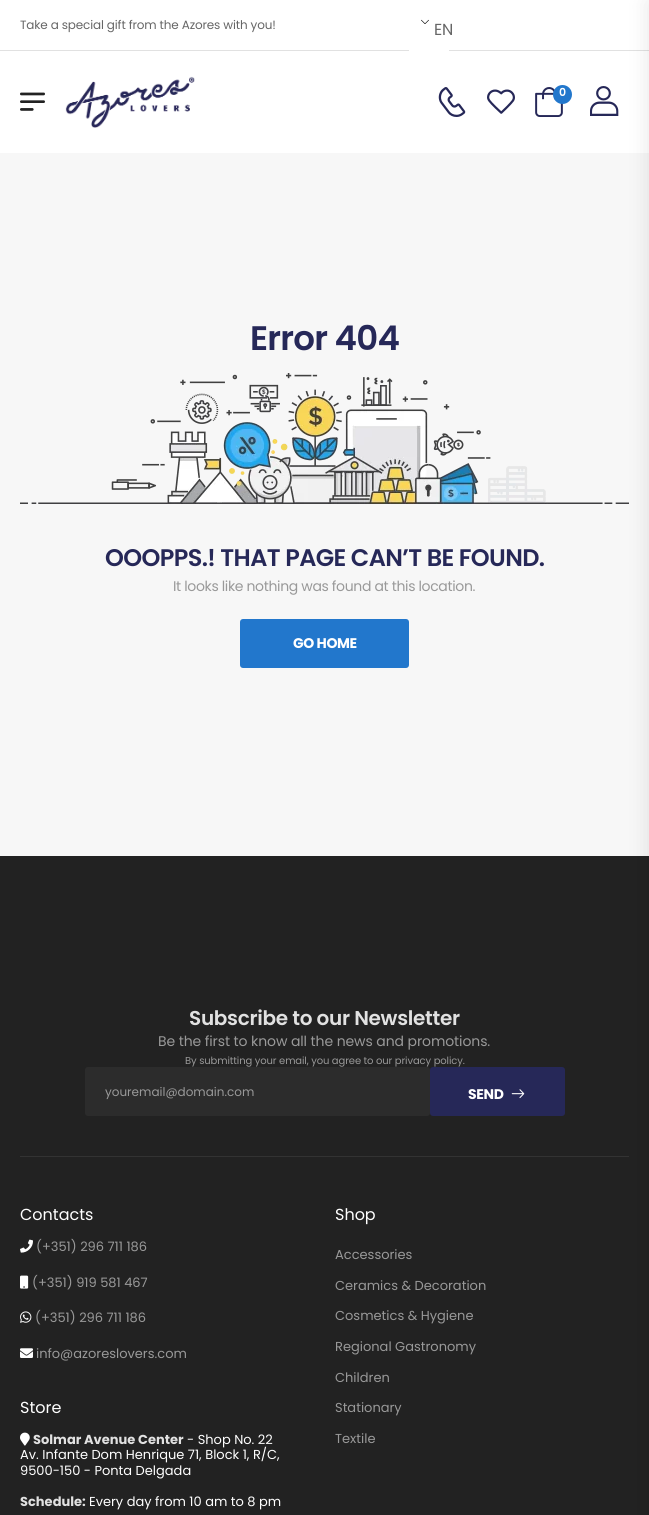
#include <cairo/cairo.h>
#include <math.h>
#include <stddef.h>

typedef struct { double x, y; const char *s; } line_t;
static cairo_t *cr;

static void rgb(unsigned color)
{
	cairo_set_source_rgb(cr, (color >> 16) / 255.0, (color >> 8 & 255) / 255.0, (color & 255) / 255.0);
}

static void tracked(double x, double y, const char *s, double letter, double word)
{
	cairo_move_to(cr, x, y);
	while (*s) {
		char ch[5] = {0};
		int n = 0;
		do ch[n++] = *s++; while ((*s & 0xC0) == 0x80);
		cairo_show_text(cr, ch);
		cairo_rel_move_to(cr, letter + word * (*ch == ' '), 0);
	}
}

static void rrect(double x, double y, double w, double h, double r)
{
	cairo_new_sub_path(cr);
	cairo_arc(cr, x + w - r, y + h - r, r, 0, M_PI / 2);
	cairo_arc(cr, x + r, y + h - r, r, M_PI / 2, M_PI);
	cairo_arc(cr, x + r, y + r, r, M_PI, 1.5 * M_PI);
	cairo_arc(cr, x + w - r, y + r, r, 1.5 * M_PI, 2 * M_PI);
	cairo_close_path(cr);
}

static void soft_shadow(double x, double y, double w, double h, double r, double blur, double alpha)
{
	cairo_push_group_with_content(cr, CAIRO_CONTENT_ALPHA);
	cairo_set_operator(cr, CAIRO_OPERATOR_SOURCE);
	for (int i = 15; i >= -15 && fmin(w, h) + blur * i / 3 > 0; i -= 2) {
		double e = blur * i / 6;
		cairo_set_source_rgba(cr, 0, 0, 0, alpha * erfc((i - 1) / 8.5) / 2);
		rrect(x - e, y - e, w + 2 * e, h + 2 * e, fmax(0, fmin(r + e + blur * .6, fmin(w, h) / 2 + e)));
		cairo_fill(cr);
	}
	cairo_pattern_t *soft = cairo_pop_group(cr);
	cairo_mask(cr, soft);
	cairo_pattern_destroy(soft);
}

static void image(const char *path, double x, double y, double w, double h)
{
	cairo_surface_t *image = cairo_image_surface_create_from_png(path);
	cairo_save(cr);
	cairo_set_source_surface(cr, image, x, y);
	cairo_rectangle(cr, x, y, w, h);
	cairo_fill(cr);
	cairo_restore(cr);
	cairo_surface_destroy(image);
}

int main(void) {
	cairo_surface_t *surface = cairo_image_surface_create(CAIRO_FORMAT_RGB24, 649, 1515);
	cr = cairo_create(surface);
	cairo_font_options_t *options = cairo_font_options_create();
	cairo_font_options_set_hint_metrics(options, CAIRO_HINT_METRICS_OFF);
	cairo_font_options_set_hint_style(options, CAIRO_HINT_STYLE_NONE);
	cairo_set_font_options(cr, options);
	cairo_set_miter_limit(cr, 4);
	rgb(0xffffff);
	cairo_paint(cr);
	rgb(0xe1e1e1);
	cairo_rectangle(cr, 0, 50, 649, 1);
	cairo_fill(cr);
	rgb(0xffffff);
	rrect(409, 4, 40, 51, 2);
	cairo_fill(cr);
	image("img/1.png", 421, 19, 8, 5);
	image("img/2.png", 20, 92, 25, 19);
	image("img/3.png", 65, 76, 130, 52);
	image("img/4.png", 438, 87, 28, 30);
	image("img/5.png", 487, 89, 28, 25);
	image("img/6.png", 535, 87, 28, 30);
	rgb(0x2277cc);
	cairo_arc(cr, 562.5, 94.5, 9.5, 0, 2 * M_PI);
	cairo_fill(cr);
	image("img/7.png", 590, 86, 29, 30);
	rgb(0xf7f7f7);
	cairo_rectangle(cr, 0, 153, 649, 703);
	cairo_fill(cr);
	image("img/8.png", 20, 373, 609, 131);
	rgb(0x222222);
	cairo_rectangle(cr, 0, 856, 649, 659);
	cairo_fill(cr);
	rgb(0x333333);
	cairo_rectangle(cr, 20, 1156, 609, 1);
	cairo_fill(cr);
	rgb(0x000000);
	soft_shadow(649, 2, 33, 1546, 0, 11, 0.1);
	rgb(0x2277cc);
	rrect(241, 620, 167, 47, 2);
	cairo_fill_preserve(cr);
	cairo_stroke(cr);
	rgb(0x2c2c2c);
	rrect(85, 1067, 345, 49, 3);
	cairo_fill(cr);
	rgb(0x262858);
	rrect(430, 1067, 135, 49, 3);
	cairo_fill(cr);
	image("img/9.png", 511, 1089, 14, 10);
	image("img/10.png", 20, 1239, 13, 14);
	image("img/11.png", 20, 1275, 9, 14);
	image("img/12.png", 20, 1311, 12, 12);
	image("img/13.png", 20, 1348, 13, 10);
	image("img/14.png", 20, 1432, 10, 14);
	cairo_select_font_face(cr, "Poppins", CAIRO_FONT_SLANT_NORMAL, CAIRO_FONT_WEIGHT_NORMAL);
	cairo_set_font_size(cr, 12);
	rgb(0x666666);
	tracked(20, 29, "Take a special gift from the Azores with you!", -0.15, 0);
	cairo_set_font_size(cr, 16);
	tracked(434, 35, "EN", -0.3, 0);
	cairo_select_font_face(cr, "Poppins SemiBold", CAIRO_FONT_SLANT_NORMAL, CAIRO_FONT_WEIGHT_NORMAL);
	cairo_set_font_size(cr, 11);
	rgb(0xffffff);
	tracked(559, 96, "0", -0.3, 0);
	cairo_set_font_size(cr, 34);
	rgb(0x262858);
	tracked(250, 350, "Error 404", -0.75, 0);
	cairo_set_font_size(cr, 24);
	tracked(105, 566, "OOOPPS.! THAT PAGE CAN’T BE FOUND.", -0.6, 0);
	cairo_select_font_face(cr, "Poppins", CAIRO_FONT_SLANT_NORMAL, CAIRO_FONT_WEIGHT_NORMAL);
	cairo_set_font_size(cr, 14);
	rgb(0x999999);
	tracked(173, 591, "It looks like nothing was found at this location.", -0.35, 0);
	cairo_select_font_face(cr, "Poppins", CAIRO_FONT_SLANT_NORMAL, CAIRO_FONT_WEIGHT_BOLD);
	rgb(0xffffff);
	tracked(293, 648, "GO HOME", -0.35, 0);
	cairo_select_font_face(cr, "Poppins SemiBold", CAIRO_FONT_SLANT_NORMAL, CAIRO_FONT_WEIGHT_NORMAL);
	cairo_set_font_size(cr, 20);
	rgb(0xe1e1e1);
	tracked(189, 1025, "Subscribe to our Newsletter", -0.3, 0);
	cairo_select_font_face(cr, "Poppins", CAIRO_FONT_SLANT_NORMAL, CAIRO_FONT_WEIGHT_NORMAL);
	cairo_set_font_size(cr, 14);
	rgb(0x999999);
	tracked(158, 1046, "Be the first to know all the news and promotions.", -0.1, 0);
	cairo_set_font_size(cr, 10);
	tracked(185, 1064, "By submitting your email, you agree to our privacy policy.", -0.1, 0);
	cairo_set_font_size(cr, 12);
	cairo_move_to(cr, 105, 1096);
	cairo_show_text(cr, "youremail@domain.com");
	cairo_select_font_face(cr, "Poppins", CAIRO_FONT_SLANT_NORMAL, CAIRO_FONT_WEIGHT_BOLD);
	cairo_set_font_size(cr, 14);
	rgb(0xffffff);
	tracked(468, 1099, "SEND", -0.35, 0);
	cairo_select_font_face(cr, "Poppins", CAIRO_FONT_SLANT_NORMAL, CAIRO_FONT_WEIGHT_NORMAL);
	cairo_set_font_size(cr, 16);
	cairo_move_to(cr, 20, 1220);
	cairo_show_text(cr, "Contacts");
	cairo_set_font_size(cr, 13);
	rgb(0x999999);
	{
		static const line_t items[] = {
			{36, 1251, "(+351) 296 711 186"},
			{32, 1287, "(+351) 919 581 467"},
			{35, 1322, "(+351) 296 711 186"},
			{36, 1358, "info@azoreslovers.com"},
		};
		for (size_t i = 0; i < sizeof items / sizeof *items; i++) {
			cairo_move_to(cr, items[i].x, items[i].y);
			cairo_show_text(cr, items[i].s);
		}
	}
	cairo_set_font_size(cr, 16);
	rgb(0xffffff);
	cairo_move_to(cr, 20, 1413);
	cairo_show_text(cr, "Store");
	cairo_select_font_face(cr, "Poppins", CAIRO_FONT_SLANT_NORMAL, CAIRO_FONT_WEIGHT_BOLD);
	cairo_set_font_size(cr, 13);
	rgb(0xe1e1e1);
	cairo_move_to(cr, 33, 1444);
	cairo_show_text(cr, "Solmar Avenue Center");
	cairo_select_font_face(cr, "Poppins", CAIRO_FONT_SLANT_NORMAL, CAIRO_FONT_WEIGHT_NORMAL);
	rgb(0xffffff);
	{
		static const line_t items[] = {
			{187, 1444, "- Shop No. 22"},
			{20, 1459, "Av. Infante Dom Henrique 71, Block 1, R/C,"},
			{20, 1475, "9500-150 - Ponta Delgada"},
		};
		for (size_t i = 0; i < sizeof items / sizeof *items; i++) {
			cairo_move_to(cr, items[i].x, items[i].y);
			cairo_show_text(cr, items[i].s);
		}
	}
	cairo_select_font_face(cr, "Poppins", CAIRO_FONT_SLANT_NORMAL, CAIRO_FONT_WEIGHT_BOLD);
	rgb(0xe1e1e1);
	cairo_move_to(cr, 20, 1506);
	cairo_show_text(cr, "Schedule:");
	cairo_select_font_face(cr, "Poppins", CAIRO_FONT_SLANT_NORMAL, CAIRO_FONT_WEIGHT_NORMAL);
	rgb(0xffffff);
	cairo_move_to(cr, 89, 1506);
	cairo_show_text(cr, "Every day from 10 am to 8 pm");
	cairo_set_font_size(cr, 16);
	cairo_move_to(cr, 335, 1220);
	cairo_show_text(cr, "Shop");
	cairo_set_font_size(cr, 13);
	rgb(0x999999);
	{
		static const line_t items[] = {
			{335, 1259, "Accessories"},
			{335, 1290, "Ceramics & Decoration"},
			{335, 1320, "Cosmetics & Hygiene"},
			{335, 1351, "Regional Gastronomy"},
			{335, 1382, "Children"},
			{335, 1412, "Stationary"},
			{335, 1443, "Textile"},
		};
		for (size_t i = 0; i < sizeof items / sizeof *items; i++) {
			cairo_move_to(cr, items[i].x, items[i].y);
			cairo_show_text(cr, items[i].s);
		}
	}
	cairo_surface_write_to_png(surface, "page.png");
	cairo_font_options_destroy(options);
	cairo_destroy(cr);
	cairo_surface_destroy(surface);
	return 0;
}
